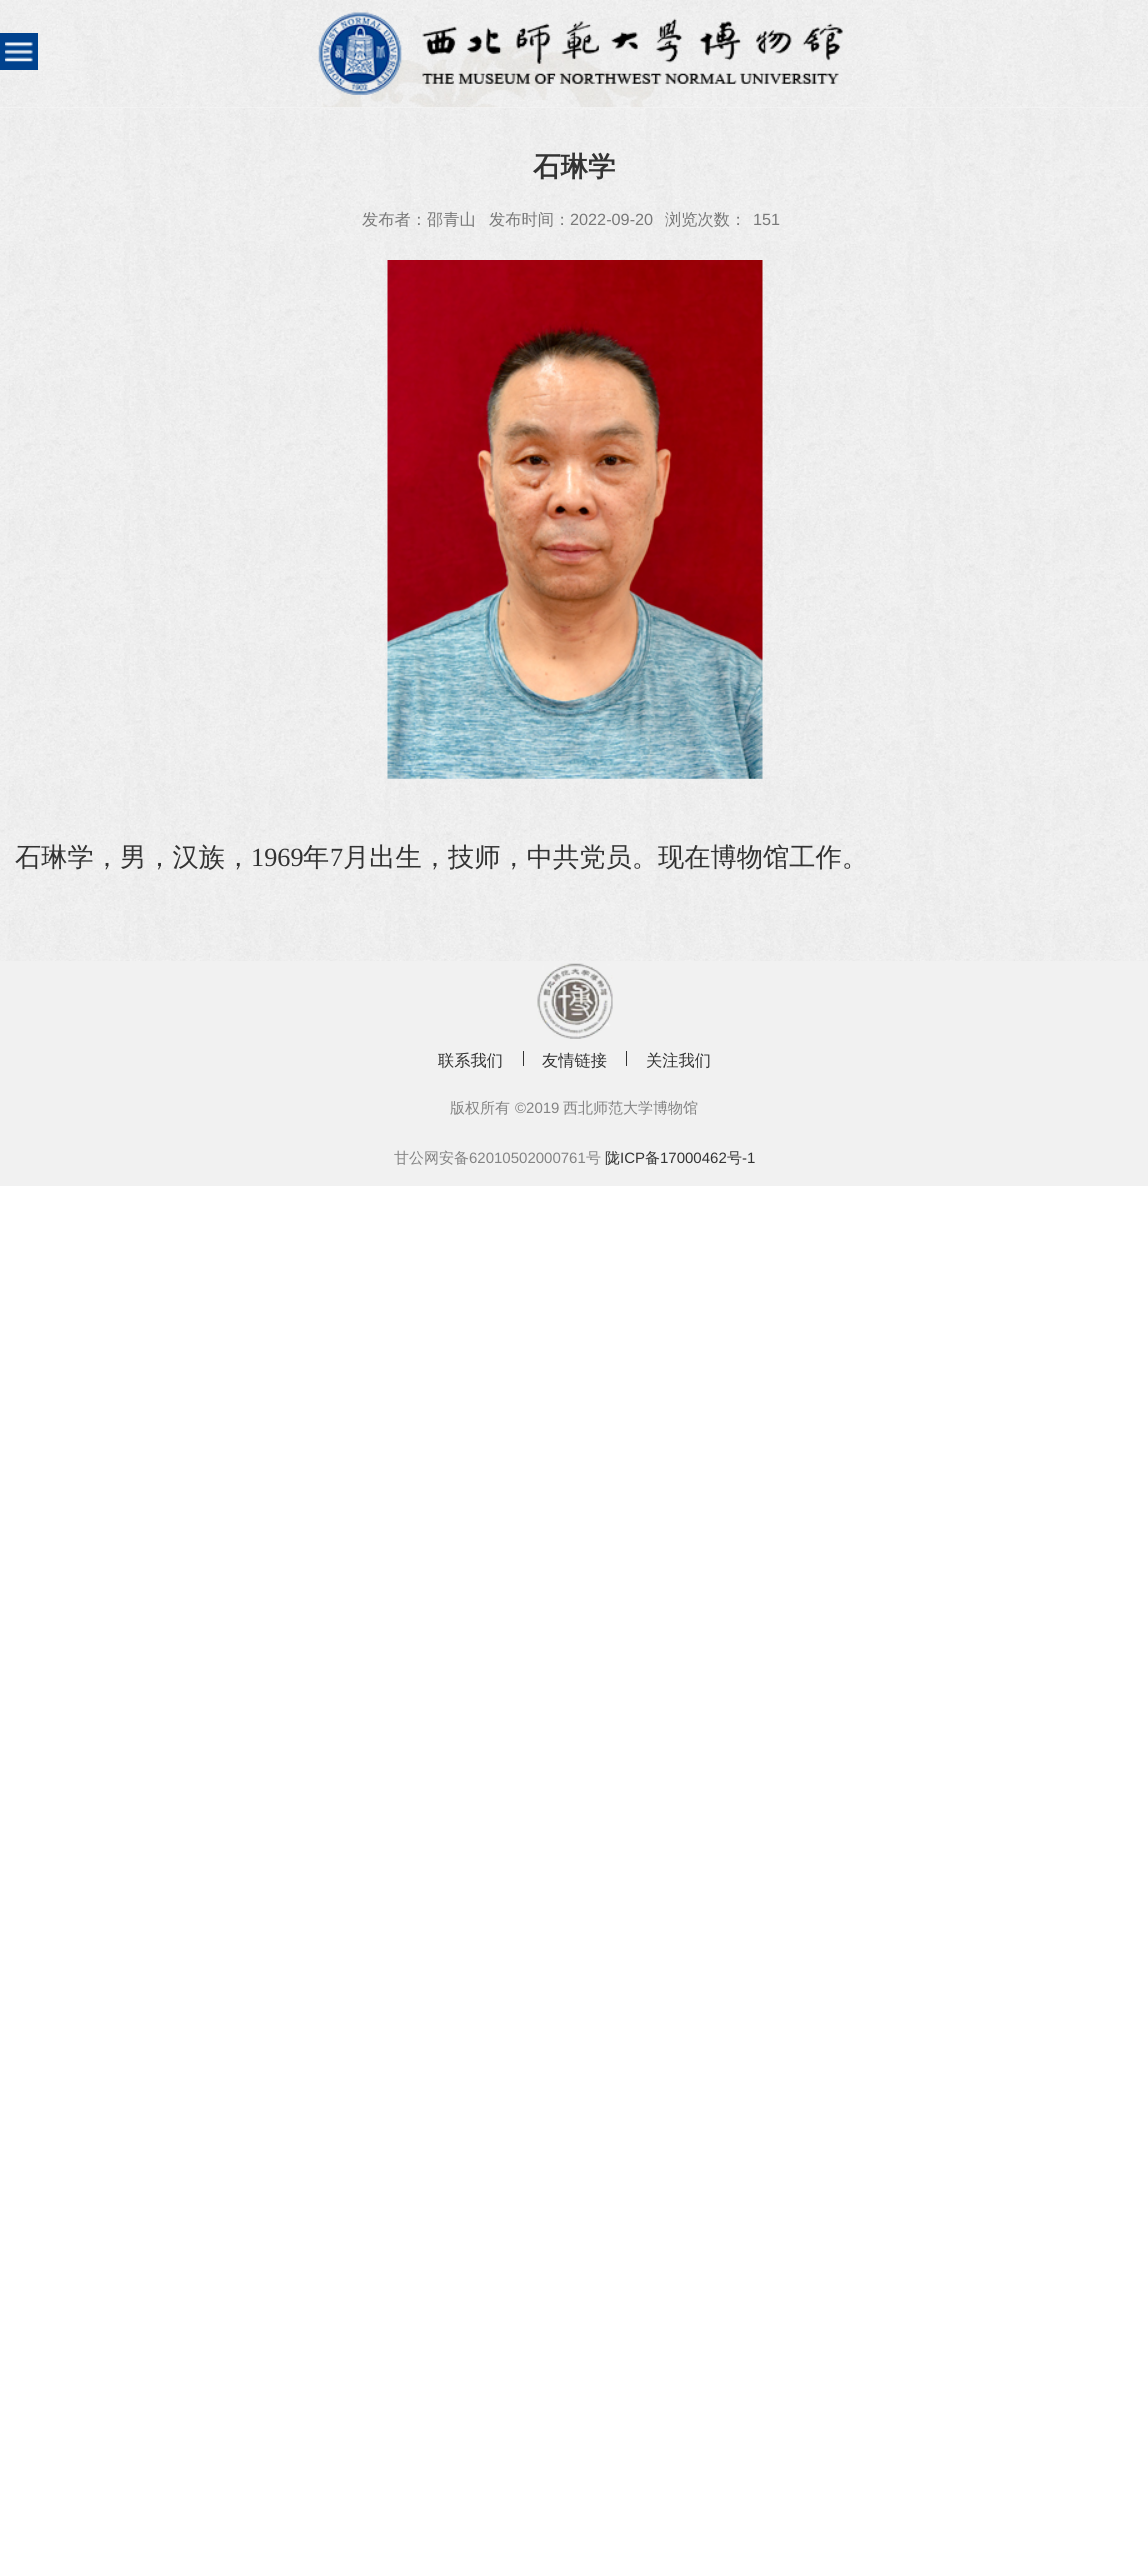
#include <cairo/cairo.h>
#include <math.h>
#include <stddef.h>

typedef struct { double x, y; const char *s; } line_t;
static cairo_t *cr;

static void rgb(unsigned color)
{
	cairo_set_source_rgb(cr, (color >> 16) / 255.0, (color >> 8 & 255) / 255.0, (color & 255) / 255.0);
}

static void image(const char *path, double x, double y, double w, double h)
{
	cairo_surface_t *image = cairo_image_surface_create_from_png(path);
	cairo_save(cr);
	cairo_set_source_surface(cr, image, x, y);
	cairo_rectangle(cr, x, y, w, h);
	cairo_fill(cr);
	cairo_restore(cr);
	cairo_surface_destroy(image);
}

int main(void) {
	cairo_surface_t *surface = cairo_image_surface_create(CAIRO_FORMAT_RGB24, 1148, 2575);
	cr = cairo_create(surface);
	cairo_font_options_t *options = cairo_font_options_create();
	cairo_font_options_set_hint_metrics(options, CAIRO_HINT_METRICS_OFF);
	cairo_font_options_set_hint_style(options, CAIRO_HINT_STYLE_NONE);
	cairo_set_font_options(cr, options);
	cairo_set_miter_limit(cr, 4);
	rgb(0xffffff);
	cairo_paint(cr);
	image("img/1.png", 0, 0, 1148, 108);
	rgb(0x00428e);
	cairo_rectangle(cr, 0, 33, 38, 37);
	cairo_fill(cr);
	image("img/2.png", 5, 42, 28, 20);
	image("img/3.png", 318, 12, 525, 83);
	image("img/4.png", 0, 107, 1148, 854);
	image("img/5.png", 387, 260, 376, 519);
	rgb(0xf1f1f1);
	cairo_rectangle(cr, 0, 961, 1148, 225);
	cairo_fill(cr);
	image("img/6.png", 537, 963, 76, 76);
	rgb(0x333333);
	cairo_rectangle(cr, 523, 1051, 1, 15);
	cairo_fill(cr);
	cairo_rectangle(cr, 626, 1051, 1, 15);
	cairo_fill(cr);
	cairo_select_font_face(cr, "WenQuanYi Zen Hei", CAIRO_FONT_SLANT_NORMAL, CAIRO_FONT_WEIGHT_BOLD);
	cairo_set_font_size(cr, 27.5);
	cairo_move_to(cr, 533, 176);
	cairo_show_text(cr, "石琳学");
	cairo_select_font_face(cr, "WenQuanYi Zen Hei Medium", CAIRO_FONT_SLANT_NORMAL, CAIRO_FONT_WEIGHT_NORMAL);
	cairo_set_font_size(cr, 16.25);
	rgb(0x787878);
	cairo_move_to(cr, 362, 225);
	cairo_show_text(cr, "发布者：邵青山");
	cairo_move_to(cr, 489, 225);
	cairo_show_text(cr, "发布时间：");
	cairo_select_font_face(cr, "Liberation Sans", CAIRO_FONT_SLANT_NORMAL, CAIRO_FONT_WEIGHT_NORMAL);
	cairo_move_to(cr, 570, 225);
	cairo_show_text(cr, "2022-09-20");
	cairo_select_font_face(cr, "WenQuanYi Zen Hei Medium", CAIRO_FONT_SLANT_NORMAL, CAIRO_FONT_WEIGHT_NORMAL);
	cairo_move_to(cr, 665, 225);
	cairo_show_text(cr, "浏览次数：");
	cairo_select_font_face(cr, "Liberation Sans", CAIRO_FONT_SLANT_NORMAL, CAIRO_FONT_WEIGHT_NORMAL);
	cairo_move_to(cr, 753, 225);
	cairo_show_text(cr, "151");
	cairo_select_font_face(cr, "WenQuanYi Zen Hei Medium", CAIRO_FONT_SLANT_NORMAL, CAIRO_FONT_WEIGHT_NORMAL);
	cairo_set_font_size(cr, 26.25);
	rgb(0x333333);
	cairo_move_to(cr, 15, 866);
	cairo_show_text(cr, "石琳学，男，汉族，");
	cairo_select_font_face(cr, "Liberation Serif", CAIRO_FONT_SLANT_NORMAL, CAIRO_FONT_WEIGHT_NORMAL);
	cairo_move_to(cr, 251, 866);
	cairo_show_text(cr, "1969");
	cairo_select_font_face(cr, "WenQuanYi Zen Hei Medium", CAIRO_FONT_SLANT_NORMAL, CAIRO_FONT_WEIGHT_NORMAL);
	cairo_move_to(cr, 303, 866);
	cairo_show_text(cr, "年");
	cairo_select_font_face(cr, "Liberation Serif", CAIRO_FONT_SLANT_NORMAL, CAIRO_FONT_WEIGHT_NORMAL);
	cairo_move_to(cr, 330, 866);
	cairo_show_text(cr, "7");
	cairo_select_font_face(cr, "WenQuanYi Zen Hei Medium", CAIRO_FONT_SLANT_NORMAL, CAIRO_FONT_WEIGHT_NORMAL);
	cairo_move_to(cr, 343, 866);
	cairo_show_text(cr, "月出生，技师，中共党员。现在博物馆工作。");
	cairo_set_font_size(cr, 16.25);
	{
		static const line_t items[] = {
			{438, 1066, "联系我们"},
			{542, 1066, "友情链接"},
			{646, 1066, "关注我们"},
		};
		for (size_t i = 0; i < sizeof items / sizeof *items; i++) {
			cairo_move_to(cr, items[i].x, items[i].y);
			cairo_show_text(cr, items[i].s);
		}
	}
	cairo_set_font_size(cr, 15);
	rgb(0x838383);
	cairo_move_to(cr, 450, 1113);
	cairo_show_text(cr, "版权所有");
	cairo_select_font_face(cr, "Liberation Sans", CAIRO_FONT_SLANT_NORMAL, CAIRO_FONT_WEIGHT_NORMAL);
	cairo_move_to(cr, 515, 1113);
	cairo_show_text(cr, "©2019");
	cairo_select_font_face(cr, "WenQuanYi Zen Hei Medium", CAIRO_FONT_SLANT_NORMAL, CAIRO_FONT_WEIGHT_NORMAL);
	cairo_move_to(cr, 563, 1113);
	cairo_show_text(cr, "西北师范大学博物馆");
	cairo_move_to(cr, 394, 1163);
	cairo_show_text(cr, "甘公网安备");
	cairo_select_font_face(cr, "Liberation Sans", CAIRO_FONT_SLANT_NORMAL, CAIRO_FONT_WEIGHT_NORMAL);
	cairo_move_to(cr, 469, 1163);
	cairo_show_text(cr, "62010502000761");
	cairo_select_font_face(cr, "WenQuanYi Zen Hei Medium", CAIRO_FONT_SLANT_NORMAL, CAIRO_FONT_WEIGHT_NORMAL);
	cairo_move_to(cr, 586, 1163);
	cairo_show_text(cr, "号");
	rgb(0x333333);
	cairo_move_to(cr, 605, 1163);
	cairo_show_text(cr, "陇");
	cairo_select_font_face(cr, "Liberation Sans", CAIRO_FONT_SLANT_NORMAL, CAIRO_FONT_WEIGHT_NORMAL);
	cairo_move_to(cr, 620, 1163);
	cairo_show_text(cr, "ICP");
	cairo_select_font_face(cr, "WenQuanYi Zen Hei Medium", CAIRO_FONT_SLANT_NORMAL, CAIRO_FONT_WEIGHT_NORMAL);
	cairo_move_to(cr, 645, 1163);
	cairo_show_text(cr, "备");
	cairo_select_font_face(cr, "Liberation Sans", CAIRO_FONT_SLANT_NORMAL, CAIRO_FONT_WEIGHT_NORMAL);
	cairo_move_to(cr, 660, 1163);
	cairo_show_text(cr, "17000462");
	cairo_select_font_face(cr, "WenQuanYi Zen Hei Medium", CAIRO_FONT_SLANT_NORMAL, CAIRO_FONT_WEIGHT_NORMAL);
	cairo_move_to(cr, 727, 1163);
	cairo_show_text(cr, "号");
	cairo_select_font_face(cr, "Liberation Sans", CAIRO_FONT_SLANT_NORMAL, CAIRO_FONT_WEIGHT_NORMAL);
	cairo_move_to(cr, 742, 1163);
	cairo_show_text(cr, "-1");
	cairo_surface_write_to_png(surface, "page.png");
	cairo_font_options_destroy(options);
	cairo_destroy(cr);
	cairo_surface_destroy(surface);
	return 0;
}
